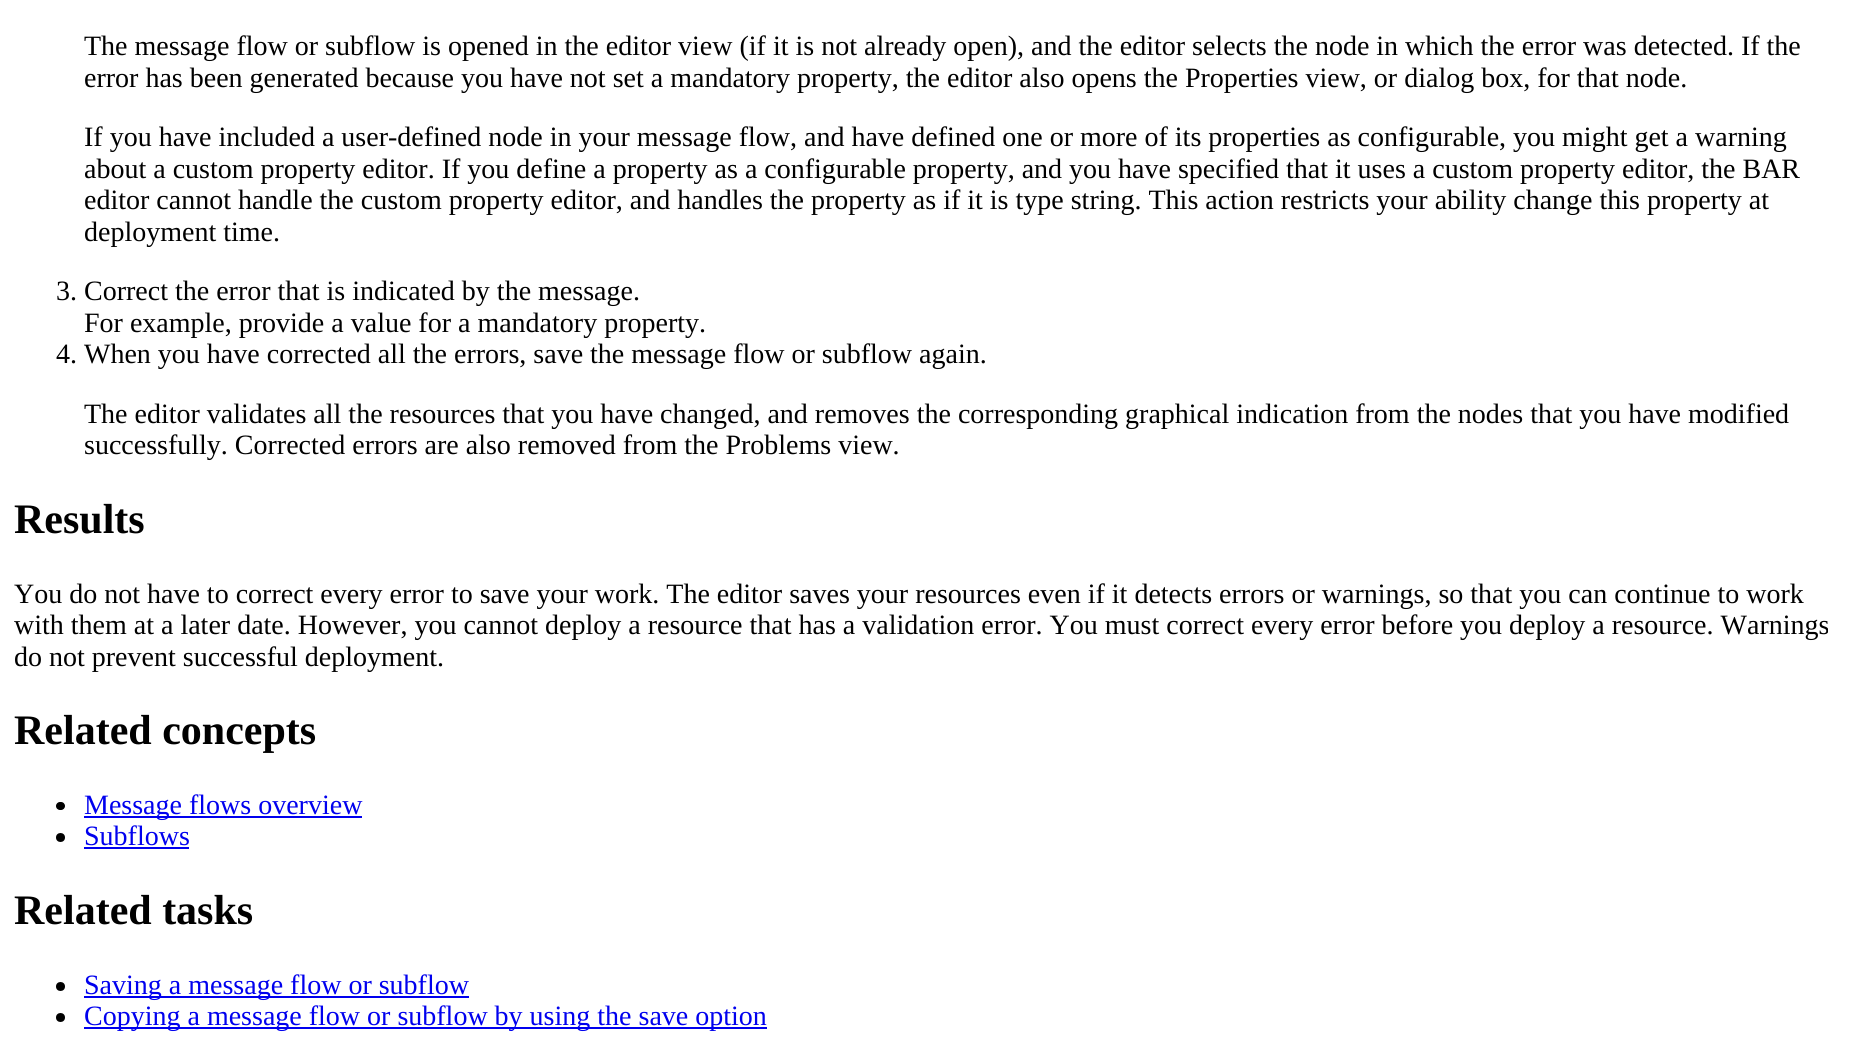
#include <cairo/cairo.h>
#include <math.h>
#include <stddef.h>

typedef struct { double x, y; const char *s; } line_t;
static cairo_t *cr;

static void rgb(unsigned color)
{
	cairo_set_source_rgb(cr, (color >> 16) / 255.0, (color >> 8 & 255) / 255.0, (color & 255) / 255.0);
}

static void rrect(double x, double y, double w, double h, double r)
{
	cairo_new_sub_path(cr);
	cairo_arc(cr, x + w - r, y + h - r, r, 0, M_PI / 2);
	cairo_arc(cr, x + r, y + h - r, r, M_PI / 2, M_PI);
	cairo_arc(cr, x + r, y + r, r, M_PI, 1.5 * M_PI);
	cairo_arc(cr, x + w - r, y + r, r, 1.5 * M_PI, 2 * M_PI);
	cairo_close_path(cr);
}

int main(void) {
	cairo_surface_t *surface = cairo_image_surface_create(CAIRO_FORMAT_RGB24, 1861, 1038);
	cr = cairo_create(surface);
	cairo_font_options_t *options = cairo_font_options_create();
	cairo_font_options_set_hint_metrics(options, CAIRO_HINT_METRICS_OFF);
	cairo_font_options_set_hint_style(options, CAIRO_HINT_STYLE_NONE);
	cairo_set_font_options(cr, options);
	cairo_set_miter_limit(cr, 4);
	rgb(0xffffff);
	cairo_paint(cr);
	rgb(0x000000);
	rrect(56, 802, 9, 8, 4);
	cairo_fill(cr);
	rgb(0x0000ee);
	cairo_rectangle(cr, 84, 816, 278, 2);
	cairo_fill(cr);
	rgb(0x000000);
	cairo_arc(cr, 60.5, 837.5, 4.5, 0, 2 * M_PI);
	cairo_fill(cr);
	rgb(0x0000ee);
	cairo_rectangle(cr, 84, 847, 105, 2);
	cairo_fill(cr);
	rgb(0x000000);
	cairo_arc(cr, 60.5, 986.5, 4.5, 0, 2 * M_PI);
	cairo_fill(cr);
	rgb(0x0000ee);
	cairo_rectangle(cr, 84, 996, 385, 2);
	cairo_fill(cr);
	rgb(0x000000);
	cairo_arc(cr, 60.5, 1017.5, 4.5, 0, 2 * M_PI);
	cairo_fill(cr);
	rgb(0x0000ee);
	cairo_rectangle(cr, 84, 1027, 683, 2);
	cairo_fill(cr);
	cairo_select_font_face(cr, "Liberation Serif", CAIRO_FONT_SLANT_NORMAL, CAIRO_FONT_WEIGHT_NORMAL);
	cairo_set_font_size(cr, 28);
	rgb(0x000000);
	{
		static const line_t items[] = {
			{84, 55, "The message flow or subflow is opened in the editor view (if it is not already open), and the editor selects the node in which the error was detected. If the"},
			{84, 87, "error has been generated because you have not set a mandatory property, the editor also opens the Properties view, or dialog box, for that node."},
			{84, 146, "If you have included a user-defined node in your message flow, and have defined one or more of its properties as configurable, you might get a warning"},
			{84, 178, "about a custom property editor. If you define a property as a configurable property, and you have specified that it uses a custom property editor, the BAR"},
			{84, 209, "editor cannot handle the custom property editor, and handles the property as if it is type string. This action restricts your ability change this property at"},
			{84, 241, "deployment time."},
			{56, 300, "3. Correct the error that is indicated by the message."},
			{84, 332, "For example, provide a value for a mandatory property."},
			{56, 363, "4. When you have corrected all the errors, save the message flow or subflow again."},
			{84, 423, "The editor validates all the resources that you have changed, and removes the corresponding graphical indication from the nodes that you have modified"},
			{84, 454, "successfully. Corrected errors are also removed from the Problems view."},
		};
		for (size_t i = 0; i < sizeof items / sizeof *items; i++) {
			cairo_move_to(cr, items[i].x, items[i].y);
			cairo_show_text(cr, items[i].s);
		}
	}
	cairo_select_font_face(cr, "Liberation Serif", CAIRO_FONT_SLANT_NORMAL, CAIRO_FONT_WEIGHT_BOLD);
	cairo_set_font_size(cr, 42);
	cairo_move_to(cr, 14, 533);
	cairo_show_text(cr, "Results");
	cairo_select_font_face(cr, "Liberation Serif", CAIRO_FONT_SLANT_NORMAL, CAIRO_FONT_WEIGHT_NORMAL);
	cairo_set_font_size(cr, 28);
	{
		static const line_t items[] = {
			{14, 603, "You do not have to correct every error to save your work. The editor saves your resources even if it detects errors or warnings, so that you can continue to work"},
			{14, 634, "with them at a later date. However, you cannot deploy a resource that has a validation error. You must correct every error before you deploy a resource. Warnings"},
			{14, 666, "do not prevent successful deployment."},
		};
		for (size_t i = 0; i < sizeof items / sizeof *items; i++) {
			cairo_move_to(cr, items[i].x, items[i].y);
			cairo_show_text(cr, items[i].s);
		}
	}
	cairo_select_font_face(cr, "Liberation Serif", CAIRO_FONT_SLANT_NORMAL, CAIRO_FONT_WEIGHT_BOLD);
	cairo_set_font_size(cr, 42);
	cairo_move_to(cr, 14, 744);
	cairo_show_text(cr, "Related concepts");
	cairo_select_font_face(cr, "Liberation Serif", CAIRO_FONT_SLANT_NORMAL, CAIRO_FONT_WEIGHT_NORMAL);
	cairo_set_font_size(cr, 28);
	rgb(0x0000ee);
	cairo_move_to(cr, 84, 814);
	cairo_show_text(cr, "Message flows overview");
	cairo_move_to(cr, 84, 845);
	cairo_show_text(cr, "Subflows");
	cairo_select_font_face(cr, "Liberation Serif", CAIRO_FONT_SLANT_NORMAL, CAIRO_FONT_WEIGHT_BOLD);
	cairo_set_font_size(cr, 42);
	rgb(0x000000);
	cairo_move_to(cr, 14, 924);
	cairo_show_text(cr, "Related tasks");
	cairo_select_font_face(cr, "Liberation Serif", CAIRO_FONT_SLANT_NORMAL, CAIRO_FONT_WEIGHT_NORMAL);
	cairo_set_font_size(cr, 28);
	rgb(0x0000ee);
	cairo_move_to(cr, 84, 994);
	cairo_show_text(cr, "Saving a message flow or subflow");
	cairo_move_to(cr, 84, 1025);
	cairo_show_text(cr, "Copying a message flow or subflow by using the save option");
	cairo_surface_write_to_png(surface, "page.png");
	cairo_font_options_destroy(options);
	cairo_destroy(cr);
	cairo_surface_destroy(surface);
	return 0;
}
